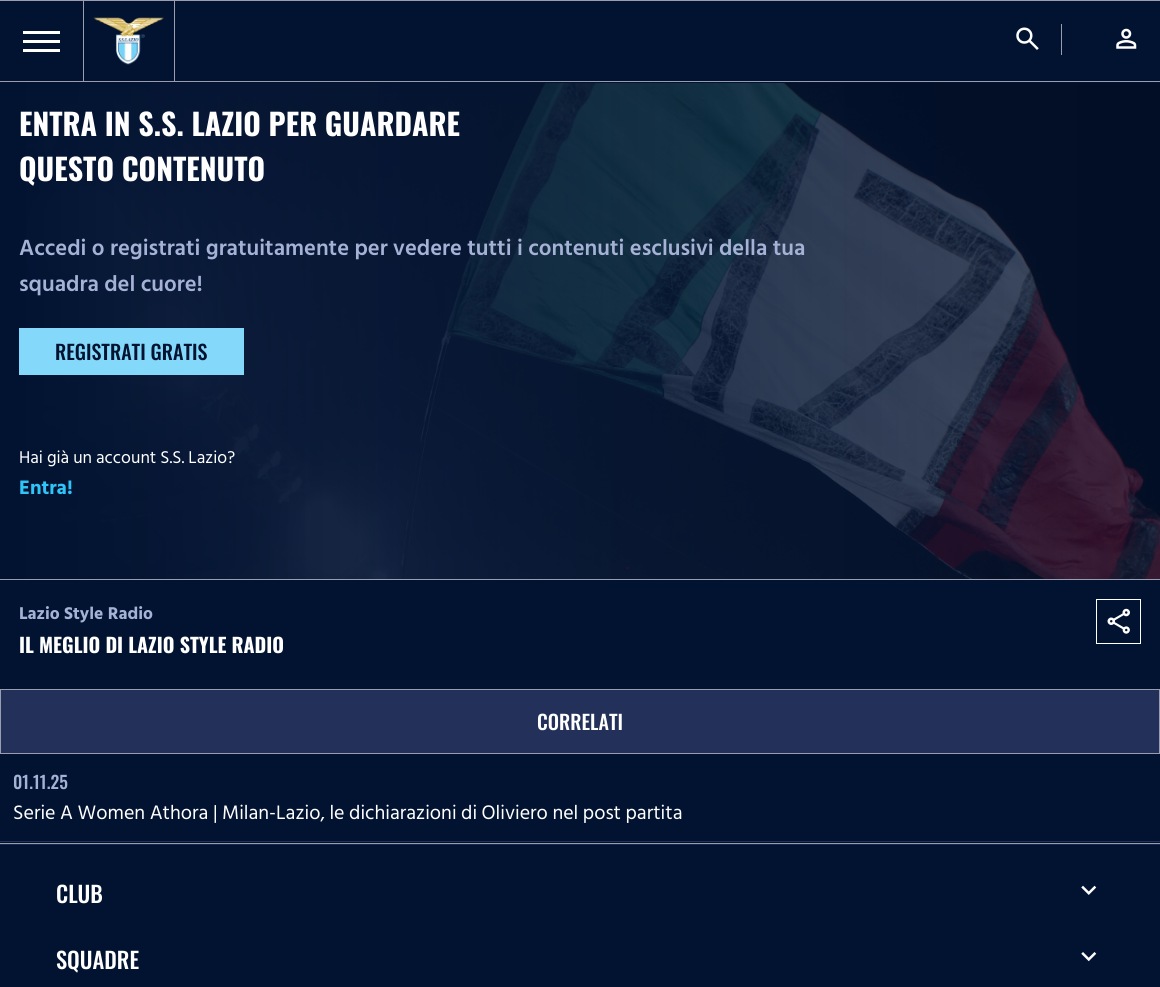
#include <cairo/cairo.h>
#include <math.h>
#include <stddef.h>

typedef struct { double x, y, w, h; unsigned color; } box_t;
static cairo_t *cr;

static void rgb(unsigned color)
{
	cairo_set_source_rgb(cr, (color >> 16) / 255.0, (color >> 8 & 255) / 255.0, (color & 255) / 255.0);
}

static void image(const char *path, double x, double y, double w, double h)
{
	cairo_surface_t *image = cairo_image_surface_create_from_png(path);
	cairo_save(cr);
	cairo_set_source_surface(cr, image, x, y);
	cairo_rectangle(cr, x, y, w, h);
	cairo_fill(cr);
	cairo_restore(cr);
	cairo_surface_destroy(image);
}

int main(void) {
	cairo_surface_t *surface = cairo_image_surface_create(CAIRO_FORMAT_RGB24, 1160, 987);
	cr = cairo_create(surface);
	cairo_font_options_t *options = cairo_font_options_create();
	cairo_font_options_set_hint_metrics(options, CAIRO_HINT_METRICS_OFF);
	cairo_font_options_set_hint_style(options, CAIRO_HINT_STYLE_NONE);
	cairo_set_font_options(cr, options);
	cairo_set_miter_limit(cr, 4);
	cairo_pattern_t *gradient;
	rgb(0x021332);
	cairo_paint(cr);
	{
		static const box_t items[] = {
			{0, 0, 1160, 1, 0x9a9dae},
			{0, 81, 1160, 1, 0x9a9dae},
			{23, 31, 37, 3, 0xffffff},
			{23, 40, 37, 3, 0xffffff},
			{23, 49, 37, 3, 0xffffff},
			{174, 1, 1, 80, 0x9a9dae},
			{83, 1, 1, 80, 0x9a9dae},
		};
		for (size_t i = 0; i < sizeof items / sizeof *items; i++) {
			rgb(items[i].color);
			cairo_rectangle(cr, items[i].x, items[i].y, items[i].w, items[i].h);
			cairo_fill(cr);
		}
	}
	image("img/1.png", 93, 17, 71, 48);
	cairo_rectangle(cr, 1061, 24, 1, 31);
	cairo_fill(cr);
	image("img/2.png", 1016, 27, 23, 23);
	image("img/3.png", 1116, 28, 21, 21);
	image("img/4.png", 26, 83, 1134, 496);
	gradient = cairo_pattern_create_linear(1160, 315, -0.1, 314);
	cairo_pattern_add_color_stop_rgba(gradient, 0.04, 0.008, 0.075, 0.196, 0.75);
	cairo_pattern_add_color_stop_rgba(gradient, 1, 0.008, 0.075, 0.196, 1);
	cairo_set_source(cr, gradient);
	cairo_pattern_destroy(gradient);
	cairo_rectangle(cr, 26, 83, 1134, 496);
	cairo_fill(cr);
	{
		static const box_t items[] = {
			{19, 328, 225, 47, 0x84d8f9},
			{0, 579, 1160, 1, 0x9a9dae},
			{0, 689, 1160, 1, 0x9a9dae},
		};
		for (size_t i = 0; i < sizeof items / sizeof *items; i++) {
			rgb(items[i].color);
			cairo_rectangle(cr, items[i].x, items[i].y, items[i].w, items[i].h);
			cairo_fill(cr);
		}
	}
	cairo_rectangle(cr, 1096.5, 599.5, 44, 44);
	rgb(0xffffff);
	cairo_set_line_width(cr, 1);
	cairo_stroke(cr);
	image("img/5.png", 1107, 608, 23, 26);
	{
		static const box_t items[] = {
			{1159, 690, 1, 64, 0x9a9dae},
			{0, 753, 1160, 1, 0x9a9dae},
			{0, 690, 1, 64, 0x9a9dae},
			{1, 690, 1158, 63, 0x22305a},
			{0, 843, 1160, 1, 0x9a9dae},
			{0, 841, 1160, 1, 0x22305a},
			{0, 844, 1160, 1, 0x18274e},
		};
		for (size_t i = 0; i < sizeof items / sizeof *items; i++) {
			rgb(items[i].color);
			cairo_rectangle(cr, items[i].x, items[i].y, items[i].w, items[i].h);
			cairo_fill(cr);
		}
	}
	image("img/6.png", 1081, 885, 16, 10);
	image("img/7.png", 1081, 952, 16, 10);
	cairo_select_font_face(cr, "Oswald", CAIRO_FONT_SLANT_NORMAL, CAIRO_FONT_WEIGHT_BOLD);
	cairo_set_font_size(cr, 30);
	rgb(0xffffff);
	cairo_move_to(cr, 19, 136);
	cairo_show_text(cr, "ENTRA IN S.S. LAZIO PER GUARDARE");
	cairo_move_to(cr, 19, 181);
	cairo_show_text(cr, "QUESTO CONTENUTO");
	cairo_select_font_face(cr, "Hind Siliguri SemiBold", CAIRO_FONT_SLANT_NORMAL, CAIRO_FONT_WEIGHT_NORMAL);
	cairo_set_font_size(cr, 22.5);
	rgb(0xa6b1d6);
	cairo_move_to(cr, 19, 255);
	cairo_show_text(cr, "Accedi o registrati gratuitamente per vedere tutti i contenuti esclusivi della tua");
	cairo_move_to(cr, 19, 291);
	cairo_show_text(cr, "squadra del cuore!");
	cairo_select_font_face(cr, "Oswald Medium", CAIRO_FONT_SLANT_NORMAL, CAIRO_FONT_WEIGHT_NORMAL);
	cairo_set_font_size(cr, 20);
	rgb(0x021332);
	cairo_move_to(cr, 55, 360);
	cairo_show_text(cr, "REGISTRATI GRATIS");
	cairo_select_font_face(cr, "Hind Siliguri", CAIRO_FONT_SLANT_NORMAL, CAIRO_FONT_WEIGHT_NORMAL);
	cairo_set_font_size(cr, 17.5);
	rgb(0xffffff);
	cairo_move_to(cr, 19, 463);
	cairo_show_text(cr, "Hai già un account S.S. Lazio?");
	cairo_select_font_face(cr, "Hind Siliguri", CAIRO_FONT_SLANT_NORMAL, CAIRO_FONT_WEIGHT_BOLD);
	cairo_set_font_size(cr, 20);
	rgb(0x2fc5f9);
	cairo_move_to(cr, 19, 494);
	cairo_show_text(cr, "Entra!");
	cairo_set_font_size(cr, 17.5);
	rgb(0xa6b1d6);
	cairo_move_to(cr, 19, 619);
	cairo_show_text(cr, "Lazio Style Radio");
	cairo_select_font_face(cr, "Oswald", CAIRO_FONT_SLANT_NORMAL, CAIRO_FONT_WEIGHT_BOLD);
	cairo_set_font_size(cr, 20);
	rgb(0xffffff);
	cairo_move_to(cr, 19, 653);
	cairo_show_text(cr, "IL MEGLIO DI LAZIO STYLE RADIO");
	cairo_select_font_face(cr, "Oswald Medium", CAIRO_FONT_SLANT_NORMAL, CAIRO_FONT_WEIGHT_NORMAL);
	cairo_move_to(cr, 537, 730);
	cairo_show_text(cr, "CORRELATI");
	cairo_set_font_size(cr, 17.5);
	rgb(0xa6b1d6);
	cairo_move_to(cr, 13, 789);
	cairo_show_text(cr, "01.11.25");
	cairo_select_font_face(cr, "Hind Siliguri", CAIRO_FONT_SLANT_NORMAL, CAIRO_FONT_WEIGHT_NORMAL);
	cairo_set_font_size(cr, 20);
	rgb(0xffffff);
	cairo_move_to(cr, 13, 819);
	cairo_show_text(cr, "Serie A Women Athora | Milan-Lazio, le dichiarazioni di Oliviero nel post partita");
	cairo_select_font_face(cr, "Oswald Medium", CAIRO_FONT_SLANT_NORMAL, CAIRO_FONT_WEIGHT_NORMAL);
	cairo_set_font_size(cr, 22.5);
	cairo_move_to(cr, 56, 903);
	cairo_show_text(cr, "CLUB");
	cairo_move_to(cr, 56, 969);
	cairo_show_text(cr, "SQUADRE");
	cairo_surface_write_to_png(surface, "page.png");
	cairo_font_options_destroy(options);
	cairo_destroy(cr);
	cairo_surface_destroy(surface);
	return 0;
}
